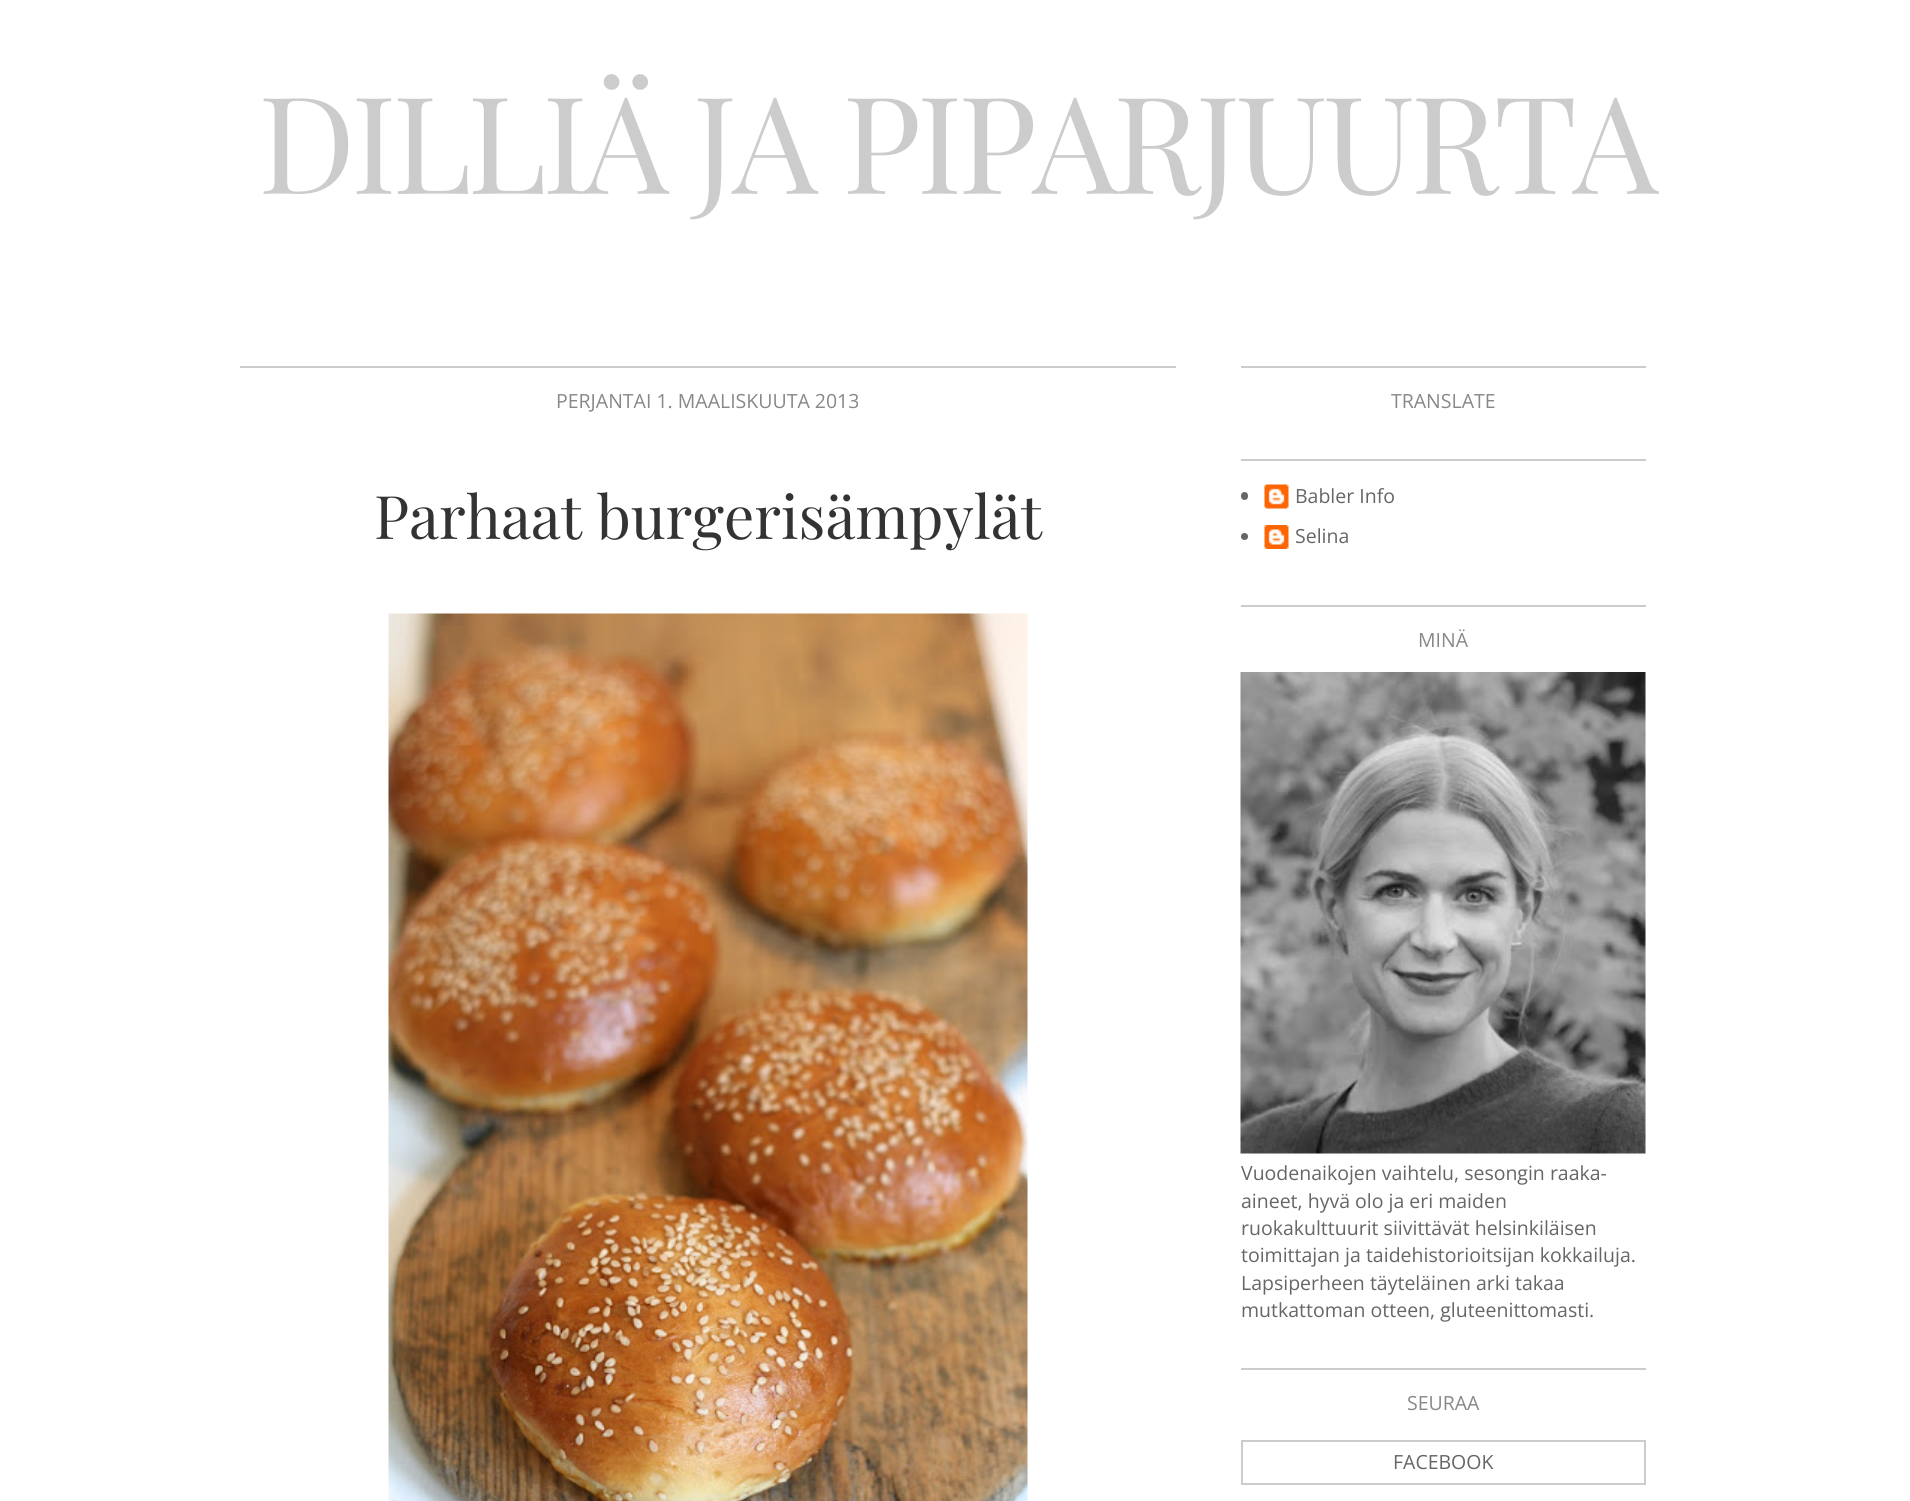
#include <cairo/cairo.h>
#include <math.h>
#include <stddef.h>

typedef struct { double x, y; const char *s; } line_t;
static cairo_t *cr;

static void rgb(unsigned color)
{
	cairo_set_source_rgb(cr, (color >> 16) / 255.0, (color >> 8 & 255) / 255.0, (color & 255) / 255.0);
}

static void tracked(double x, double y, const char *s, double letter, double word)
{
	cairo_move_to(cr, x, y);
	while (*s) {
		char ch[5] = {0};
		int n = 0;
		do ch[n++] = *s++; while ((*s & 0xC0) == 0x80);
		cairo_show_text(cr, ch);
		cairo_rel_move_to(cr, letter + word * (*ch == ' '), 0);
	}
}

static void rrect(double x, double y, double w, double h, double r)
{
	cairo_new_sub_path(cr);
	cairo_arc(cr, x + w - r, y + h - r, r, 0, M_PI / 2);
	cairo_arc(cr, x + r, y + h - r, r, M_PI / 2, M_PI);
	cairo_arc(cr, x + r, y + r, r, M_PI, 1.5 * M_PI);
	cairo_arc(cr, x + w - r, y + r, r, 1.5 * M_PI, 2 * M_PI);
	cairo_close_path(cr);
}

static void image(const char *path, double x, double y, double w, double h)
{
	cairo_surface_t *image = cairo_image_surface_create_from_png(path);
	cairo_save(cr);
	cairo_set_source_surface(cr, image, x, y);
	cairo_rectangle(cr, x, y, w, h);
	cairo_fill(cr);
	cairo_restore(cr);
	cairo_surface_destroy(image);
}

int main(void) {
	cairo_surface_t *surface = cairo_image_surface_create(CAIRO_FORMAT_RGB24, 1910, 1501);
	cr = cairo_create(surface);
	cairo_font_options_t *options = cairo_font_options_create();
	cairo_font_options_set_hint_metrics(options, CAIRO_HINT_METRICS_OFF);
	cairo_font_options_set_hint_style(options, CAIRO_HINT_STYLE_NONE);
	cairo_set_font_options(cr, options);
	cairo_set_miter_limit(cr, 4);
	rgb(0xffffff);
	cairo_paint(cr);
	rgb(0xcccccc);
	cairo_rectangle(cr, 240, 366, 936, 2);
	cairo_fill(cr);
	image("img/1.png", 388, 613, 640, 888);
	cairo_rectangle(cr, 1241, 366, 405, 2);
	cairo_fill(cr);
	cairo_rectangle(cr, 1241, 459, 405, 2);
	cairo_fill(cr);
	rgb(0x666666);
	rrect(1241, 492, 7, 8, 3.5);
	cairo_fill(cr);
	image("img/2.png", 1264, 484, 25, 25);
	cairo_arc(cr, 1244.5, 536.5, 3.5, 0, 2 * M_PI);
	cairo_fill(cr);
	image("img/3.png", 1264, 525, 25, 24);
	rgb(0xcccccc);
	cairo_rectangle(cr, 1241, 605, 405, 2);
	cairo_fill(cr);
	image("img/4.png", 1240, 672, 406, 482);
	cairo_rectangle(cr, 1241, 1368, 405, 2);
	cairo_fill(cr);
	cairo_rectangle(cr, 1242, 1441, 403, 43);
	cairo_stroke(cr);
	cairo_select_font_face(cr, "Playfair Display", CAIRO_FONT_SLANT_NORMAL, CAIRO_FONT_WEIGHT_NORMAL);
	cairo_set_font_size(cr, 135);
	tracked(258, 194, "DILLIÄ JA PIPARJUURTA", -4.5, 0);
	cairo_select_font_face(cr, "Open Sans", CAIRO_FONT_SLANT_NORMAL, CAIRO_FONT_WEIGHT_NORMAL);
	cairo_set_font_size(cr, 19.5);
	rgb(0x888888);
	cairo_move_to(cr, 556, 408);
	cairo_show_text(cr, "PERJANTAI 1. MAALISKUUTA 2013");
	cairo_select_font_face(cr, "Playfair Display", CAIRO_FONT_SLANT_NORMAL, CAIRO_FONT_WEIGHT_NORMAL);
	cairo_set_font_size(cr, 60);
	rgb(0x333333);
	cairo_move_to(cr, 374, 539);
	cairo_show_text(cr, "Parhaat burgerisämpylät");
	cairo_select_font_face(cr, "Open Sans", CAIRO_FONT_SLANT_NORMAL, CAIRO_FONT_WEIGHT_NORMAL);
	cairo_set_font_size(cr, 19.5);
	rgb(0x888888);
	cairo_move_to(cr, 1391, 408);
	cairo_show_text(cr, "TRANSLATE");
	rgb(0x666666);
	cairo_move_to(cr, 1295, 503);
	cairo_show_text(cr, "Babler Info");
	cairo_move_to(cr, 1295, 543);
	cairo_show_text(cr, "Selina");
	rgb(0x888888);
	cairo_move_to(cr, 1418, 647);
	cairo_show_text(cr, "MINÄ");
	rgb(0x666666);
	{
		static const line_t items[] = {
			{1241, 1180, "Vuodenaikojen vaihtelu, sesongin raaka-"},
			{1241, 1208, "aineet, hyvä olo ja eri maiden"},
			{1241, 1235, "ruokakulttuurit siivittävät helsinkiläisen"},
			{1241, 1262, "toimittajan ja taidehistorioitsijan kokkailuja."},
			{1241, 1290, "Lapsiperheen täyteläinen arki takaa"},
			{1241, 1317, "mutkattoman otteen, gluteenittomasti."},
		};
		for (size_t i = 0; i < sizeof items / sizeof *items; i++) {
			cairo_move_to(cr, items[i].x, items[i].y);
			cairo_show_text(cr, items[i].s);
		}
	}
	rgb(0x888888);
	cairo_move_to(cr, 1407, 1410);
	cairo_show_text(cr, "SEURAA");
	rgb(0x666666);
	cairo_move_to(cr, 1393, 1469);
	cairo_show_text(cr, "FACEBOOK");
	cairo_surface_write_to_png(surface, "page.png");
	cairo_font_options_destroy(options);
	cairo_destroy(cr);
	cairo_surface_destroy(surface);
	return 0;
}
